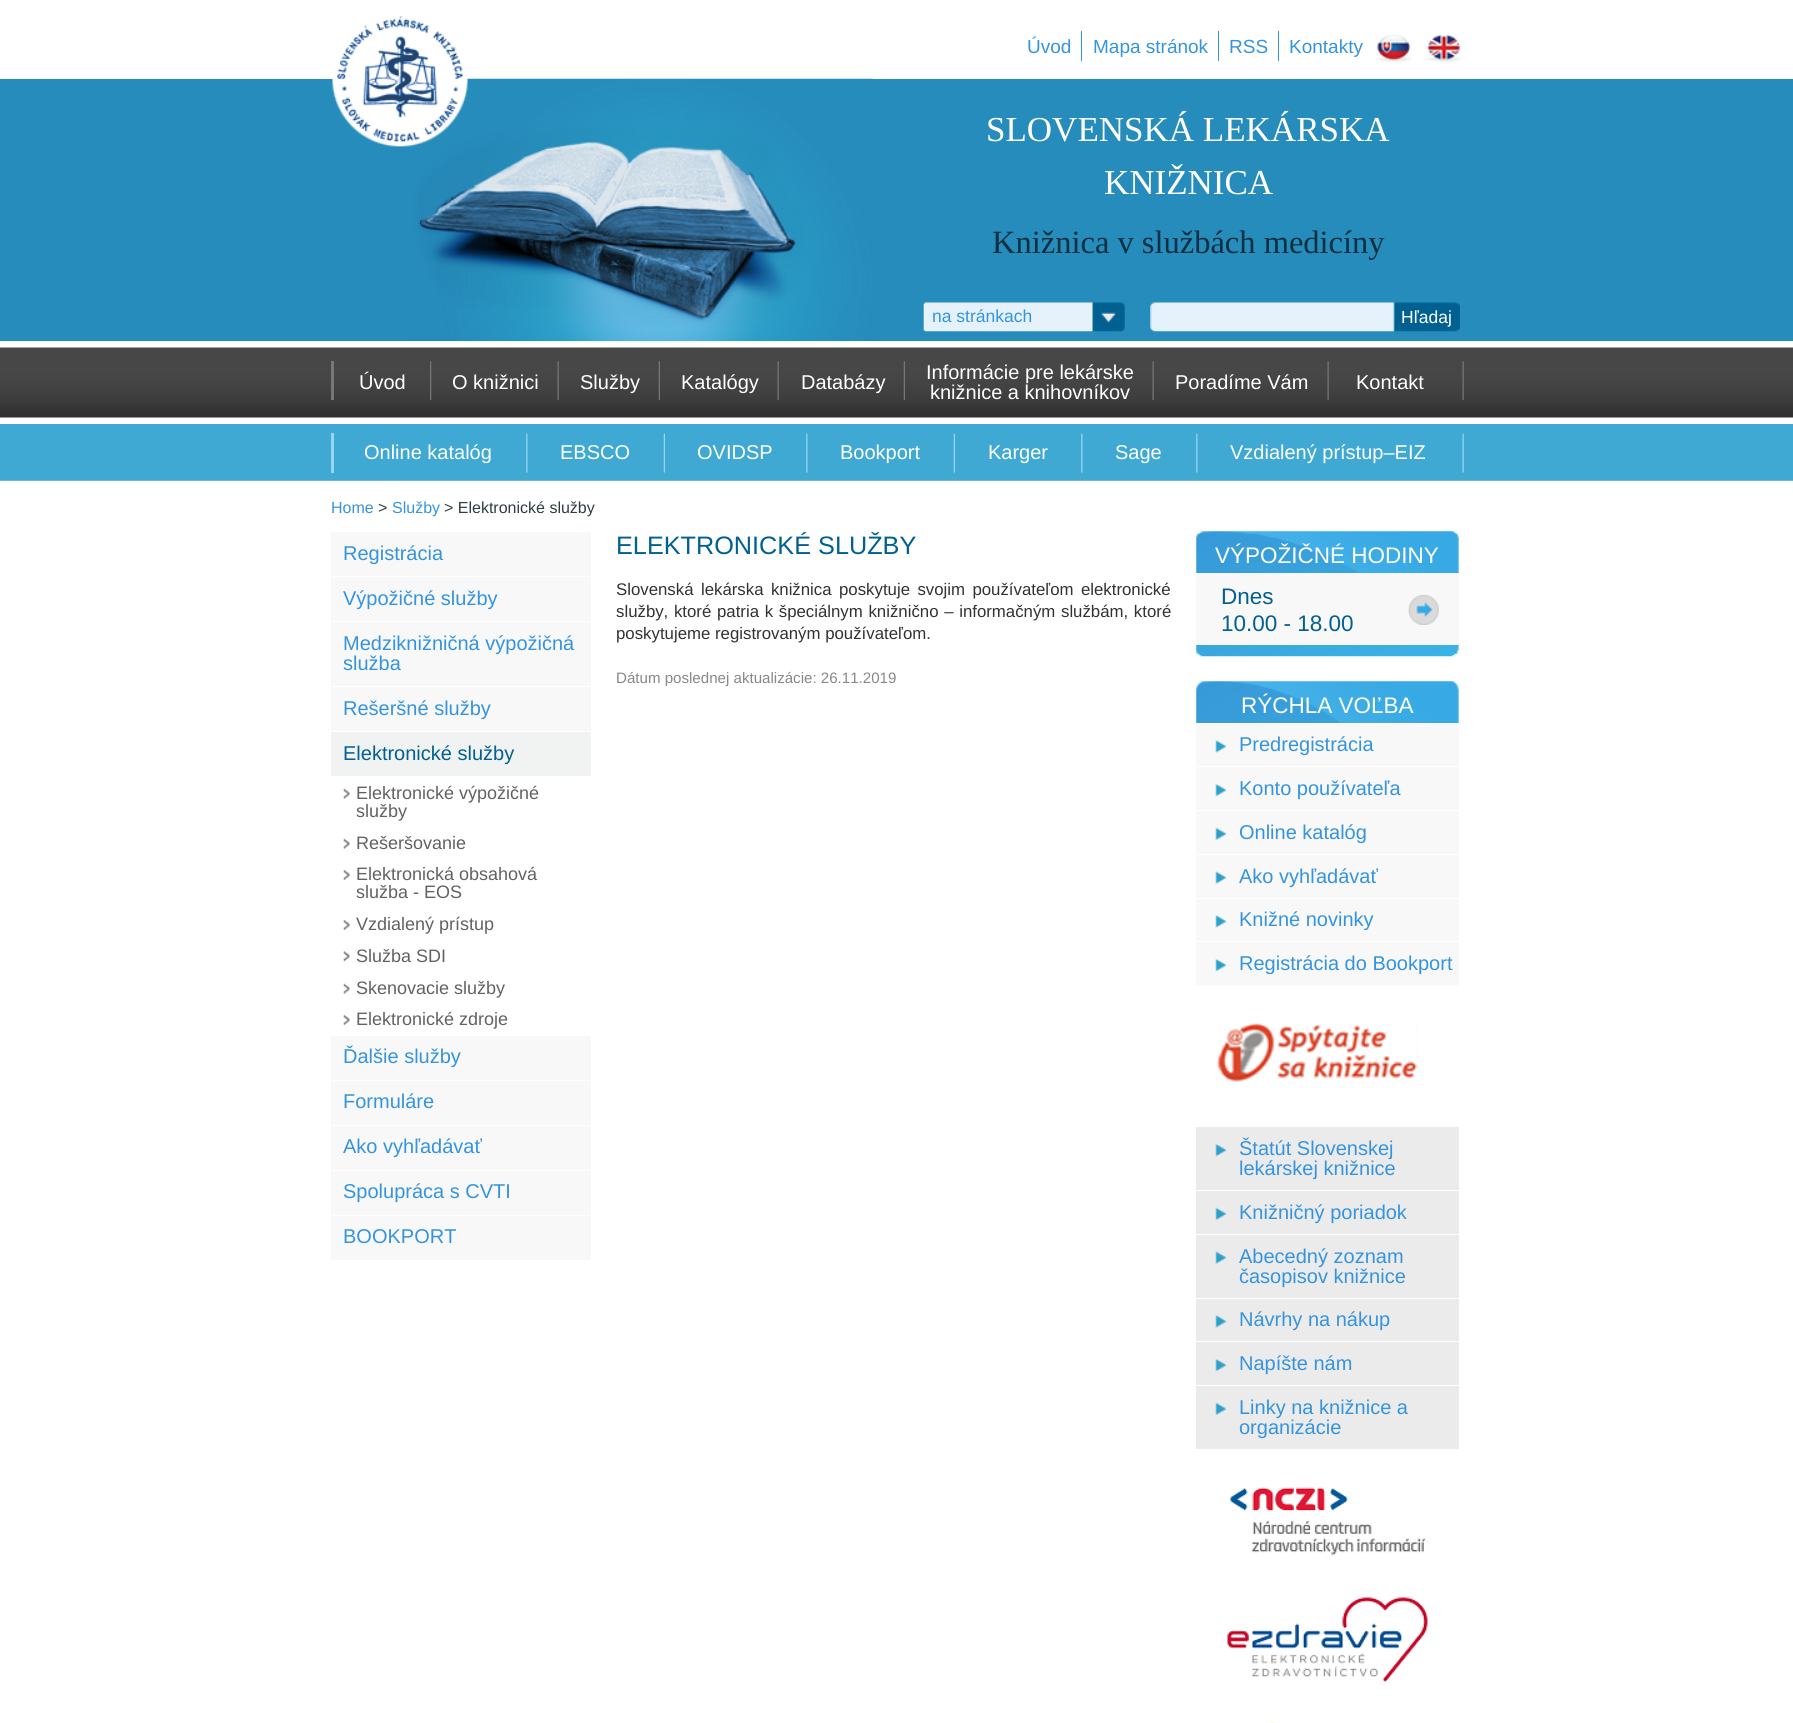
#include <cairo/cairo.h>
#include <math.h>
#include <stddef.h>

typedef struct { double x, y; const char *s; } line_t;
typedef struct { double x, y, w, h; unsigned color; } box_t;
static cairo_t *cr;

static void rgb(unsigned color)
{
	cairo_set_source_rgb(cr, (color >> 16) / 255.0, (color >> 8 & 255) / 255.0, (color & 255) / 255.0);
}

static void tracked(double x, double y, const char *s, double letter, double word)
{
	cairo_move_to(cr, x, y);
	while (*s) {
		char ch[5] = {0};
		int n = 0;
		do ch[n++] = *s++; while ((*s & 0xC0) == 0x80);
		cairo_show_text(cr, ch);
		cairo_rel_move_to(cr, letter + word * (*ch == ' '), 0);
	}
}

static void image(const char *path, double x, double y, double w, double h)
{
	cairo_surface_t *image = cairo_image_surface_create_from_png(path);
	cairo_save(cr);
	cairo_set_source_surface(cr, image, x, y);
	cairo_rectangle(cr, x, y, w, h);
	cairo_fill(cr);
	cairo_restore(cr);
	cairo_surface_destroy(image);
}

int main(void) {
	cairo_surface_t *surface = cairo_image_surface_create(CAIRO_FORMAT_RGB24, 1793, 1723);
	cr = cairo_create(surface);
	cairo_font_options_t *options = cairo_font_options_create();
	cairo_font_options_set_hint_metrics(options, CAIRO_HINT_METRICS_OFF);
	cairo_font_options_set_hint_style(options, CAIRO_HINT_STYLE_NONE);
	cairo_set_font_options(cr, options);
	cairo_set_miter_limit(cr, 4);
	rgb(0xffffff);
	cairo_paint(cr);
	rgb(0x268cbc);
	cairo_rectangle(cr, 0, 79, 1793, 262);
	cairo_fill(cr);
	image("img/4.png", 408, 78, 465, 264);
	image("img/1.png", 332, 16, 136, 131);
	{
		static const box_t items[] = {
			{1081, 31, 1, 30, 0x3494df},
			{1218, 31, 1, 30, 0x3494df},
			{1278, 31, 1, 30, 0x3494df},
		};
		for (size_t i = 0; i < sizeof items / sizeof *items; i++) {
			rgb(items[i].color);
			cairo_rectangle(cr, items[i].x, items[i].y, items[i].w, items[i].h);
			cairo_fill(cr);
		}
	}
	image("img/2.png", 1376, 35, 36, 28);
	image("img/3.png", 1426, 34, 36, 29);
	image("img/5.png", 923, 302, 202, 30);
	image("img/6.png", 1150, 302, 244, 30);
	image("img/7.png", 1395, 302, 65, 30);
	image("img/8.png", 0, 341, 1793, 83);
	image("img/9.png", 1462, 361, 2, 39);
	rgb(0x777777);
	cairo_rectangle(cr, 331, 361, 3, 39);
	cairo_fill(cr);
	image("img/10.png", 430, 361, 2, 39);
	image("img/9.png", 557, 361, 2, 39);
	image("img/11.png", 658, 361, 2, 39);
	image("img/9.png", 777, 361, 2, 39);
	image("img/11.png", 903, 361, 2, 39);
	image("img/9.png", 1152, 361, 2, 39);
	image("img/9.png", 1327, 361, 2, 39);
	rgb(0x3fa9d3);
	cairo_rectangle(cr, 0, 424, 1793, 56);
	cairo_fill(cr);
	rgb(0x65badc);
	cairo_rectangle(cr, 0, 480, 1793, 1);
	cairo_fill(cr);
	image("img/12.png", 1462, 433, 2, 40);
	rgb(0x96d7f5);
	cairo_rectangle(cr, 331, 433, 3, 40);
	cairo_fill(cr);
	image("img/13.png", 526, 433, 2, 40);
	image("img/14.png", 663, 433, 2, 40);
	image("img/13.png", 806, 433, 2, 40);
	image("img/14.png", 953, 433, 2, 40);
	image("img/13.png", 1081, 433, 2, 40);
	image("img/13.png", 1196, 433, 2, 40);
	{
		static const box_t items[] = {
			{331, 532, 260, 44, 0xf8f8f8},
			{331, 577, 260, 44, 0xf8f8f8},
			{331, 622, 260, 64, 0xf8f8f8},
			{331, 687, 260, 44, 0xf8f8f8},
			{331, 732, 260, 44, 0xf1f2f2},
		};
		for (size_t i = 0; i < sizeof items / sizeof *items; i++) {
			rgb(items[i].color);
			cairo_rectangle(cr, items[i].x, items[i].y, items[i].w, items[i].h);
			cairo_fill(cr);
		}
	}
	image("img/15.png", 343, 788, 7, 11);
	image("img/15.png", 343, 838, 7, 11);
	image("img/16.png", 343, 870, 7, 10);
	image("img/16.png", 343, 920, 7, 10);
	image("img/17.png", 343, 951, 7, 11);
	image("img/15.png", 343, 983, 7, 11);
	image("img/16.png", 343, 1015, 7, 10);
	{
		static const box_t items[] = {
			{331, 1036, 260, 44, 0xf8f8f8},
			{331, 1081, 260, 44, 0xf8f8f8},
			{331, 1126, 260, 44, 0xf8f8f8},
			{331, 1171, 260, 44, 0xf8f8f8},
			{331, 1216, 260, 44, 0xf8f8f8},
		};
		for (size_t i = 0; i < sizeof items / sizeof *items; i++) {
			rgb(items[i].color);
			cairo_rectangle(cr, items[i].x, items[i].y, items[i].w, items[i].h);
			cairo_fill(cr);
		}
	}
	image("img/18.png", 1196, 531, 263, 126);
	cairo_rectangle(cr, 1196, 573, 263, 72);
	cairo_fill(cr);
	image("img/19.png", 1408, 595, 31, 30);
	image("img/20.png", 1196, 681, 263, 42);
	cairo_rectangle(cr, 1196, 724, 263, 42);
	cairo_fill(cr);
	image("img/21.png", 1215, 740, 12, 13);
	cairo_rectangle(cr, 1196, 767, 263, 43);
	cairo_fill(cr);
	image("img/22.png", 1215, 783, 12, 14);
	cairo_rectangle(cr, 1196, 811, 263, 43);
	cairo_fill(cr);
	image("img/23.png", 1215, 827, 12, 13);
	cairo_rectangle(cr, 1196, 855, 263, 43);
	cairo_fill(cr);
	image("img/24.png", 1215, 871, 12, 13);
	cairo_rectangle(cr, 1196, 899, 263, 42);
	cairo_fill(cr);
	image("img/21.png", 1215, 915, 12, 13);
	cairo_rectangle(cr, 1196, 942, 263, 43);
	cairo_fill(cr);
	image("img/22.png", 1215, 958, 12, 14);
	image("img/25.png", 1217, 1023, 201, 59);
	rgb(0xecebeb);
	cairo_rectangle(cr, 1196, 1127, 263, 63);
	cairo_fill(cr);
	image("img/26.png", 1215, 1143, 12, 14);
	cairo_rectangle(cr, 1196, 1191, 263, 43);
	cairo_fill(cr);
	image("img/27.png", 1215, 1207, 12, 13);
	cairo_rectangle(cr, 1196, 1235, 263, 63);
	cairo_fill(cr);
	image("img/28.png", 1215, 1251, 12, 13);
	cairo_rectangle(cr, 1196, 1299, 263, 42);
	cairo_fill(cr);
	image("img/29.png", 1215, 1315, 12, 13);
	cairo_rectangle(cr, 1196, 1342, 263, 43);
	cairo_fill(cr);
	image("img/26.png", 1215, 1358, 12, 14);
	cairo_rectangle(cr, 1196, 1386, 263, 63);
	cairo_fill(cr);
	image("img/27.png", 1215, 1402, 12, 13);
	image("img/30.png", 1229, 1487, 197, 69);
	image("img/31.png", 1227, 1597, 201, 85);
	image("img/32.png", 1270, 1722, 5, 1);
	cairo_select_font_face(cr, "Liberation Sans", CAIRO_FONT_SLANT_NORMAL, CAIRO_FONT_WEIGHT_NORMAL);
	cairo_set_font_size(cr, 19);
	rgb(0x3494df);
	{
		static const line_t items[] = {
			{1027, 53, "Úvod"},
			{1093, 53, "Mapa stránok"},
			{1229, 53, "RSS"},
			{1289, 53, "Kontakty"},
		};
		for (size_t i = 0; i < sizeof items / sizeof *items; i++) {
			cairo_move_to(cr, items[i].x, items[i].y);
			cairo_show_text(cr, items[i].s);
		}
	}
	cairo_select_font_face(cr, "Liberation Serif", CAIRO_FONT_SLANT_NORMAL, CAIRO_FONT_WEIGHT_NORMAL);
	cairo_set_font_size(cr, 35);
	rgb(0xffffff);
	cairo_move_to(cr, 986, 141);
	cairo_show_text(cr, "SLOVENSKÁ LEKÁRSKA");
	cairo_move_to(cr, 1104, 194);
	cairo_show_text(cr, "KNIŽNICA");
	cairo_set_font_size(cr, 32.5);
	rgb(0x0a2f42);
	cairo_move_to(cr, 992, 253);
	cairo_show_text(cr, "Knižnica v službách medicíny");
	cairo_select_font_face(cr, "Liberation Sans", CAIRO_FONT_SLANT_NORMAL, CAIRO_FONT_WEIGHT_NORMAL);
	cairo_set_font_size(cr, 17.5);
	rgb(0x3494df);
	cairo_move_to(cr, 932, 322);
	cairo_show_text(cr, "na stránkach");
	rgb(0xffffff);
	cairo_move_to(cr, 1401, 323);
	cairo_show_text(cr, "Hľadaj");
	cairo_set_font_size(cr, 20);
	{
		static const line_t items[] = {
			{359, 389, "Úvod"},
			{452, 389, "O knižnici"},
			{580, 389, "Služby"},
			{681, 389, "Katalógy"},
			{801, 389, "Databázy"},
			{926, 379, "Informácie pre lekárske"},
			{930, 399, "knižnice a knihovníkov"},
			{1175, 389, "Poradíme Vám"},
			{1356, 389, "Kontakt"},
			{364, 459, "Online katalóg"},
			{560, 459, "EBSCO"},
			{697, 459, "OVIDSP"},
			{840, 459, "Bookport"},
			{988, 459, "Karger"},
			{1115, 459, "Sage"},
			{1230, 459, "Vzdialený prístup–EIZ"},
		};
		for (size_t i = 0; i < sizeof items / sizeof *items; i++) {
			cairo_move_to(cr, items[i].x, items[i].y);
			cairo_show_text(cr, items[i].s);
		}
	}
	cairo_set_font_size(cr, 16);
	rgb(0x3494df);
	cairo_move_to(cr, 331, 513);
	cairo_show_text(cr, "Home");
	rgb(0x2e3e3f);
	cairo_move_to(cr, 378, 513);
	cairo_show_text(cr, ">");
	rgb(0x3494df);
	cairo_move_to(cr, 392, 513);
	cairo_show_text(cr, "Služby");
	rgb(0x2e3e3f);
	cairo_move_to(cr, 444, 513);
	cairo_show_text(cr, "> Elektronické služby");
	cairo_set_font_size(cr, 20);
	rgb(0x3494df);
	{
		static const line_t items[] = {
			{343, 560, "Registrácia"},
			{343, 605, "Výpožičné služby"},
			{343, 650, "Medziknižničná výpožičná"},
			{343, 670, "služba"},
			{343, 715, "Rešeršné služby"},
		};
		for (size_t i = 0; i < sizeof items / sizeof *items; i++) {
			cairo_move_to(cr, items[i].x, items[i].y);
			cairo_show_text(cr, items[i].s);
		}
	}
	rgb(0x006191);
	cairo_move_to(cr, 343, 760);
	cairo_show_text(cr, "Elektronické služby");
	cairo_set_font_size(cr, 18);
	rgb(0x626262);
	{
		static const line_t items[] = {
			{356, 799, "Elektronické výpožičné"},
			{356, 817, "služby"},
			{356, 849, "Rešeršovanie"},
			{356, 880, "Elektronická obsahová"},
			{356, 898, "služba - EOS"},
			{356, 930, "Vzdialený prístup"},
			{356, 962, "Služba SDI"},
			{356, 994, "Skenovacie služby"},
			{356, 1025, "Elektronické zdroje"},
		};
		for (size_t i = 0; i < sizeof items / sizeof *items; i++) {
			cairo_move_to(cr, items[i].x, items[i].y);
			cairo_show_text(cr, items[i].s);
		}
	}
	cairo_set_font_size(cr, 20);
	rgb(0x3494df);
	{
		static const line_t items[] = {
			{343, 1063, "Ďalšie služby"},
			{343, 1108, "Formuláre"},
			{343, 1153, "Ako vyhľadávať"},
			{343, 1198, "Spolupráca s CVTI"},
			{343, 1243, "BOOKPORT"},
		};
		for (size_t i = 0; i < sizeof items / sizeof *items; i++) {
			cairo_move_to(cr, items[i].x, items[i].y);
			cairo_show_text(cr, items[i].s);
		}
	}
	cairo_set_font_size(cr, 25.25);
	rgb(0x006191);
	cairo_move_to(cr, 616, 554);
	cairo_show_text(cr, "ELEKTRONICKÉ SLUŽBY");
	cairo_set_font_size(cr, 16.8);
	rgb(0x323232);
	tracked(616, 595, "Slovenská lekárska knižnica poskytuje svojim používateľom elektronické", 0, 2.75);
	tracked(616, 617, "služby, ktoré patria k špeciálnym knižnično – informačným službám, ktoré", 0, 1);
	cairo_move_to(cr, 616, 639);
	cairo_show_text(cr, "poskytujeme registrovaným používateľom.");
	cairo_set_font_size(cr, 15.1);
	rgb(0x888888);
	cairo_move_to(cr, 616, 683);
	cairo_show_text(cr, "Dátum poslednej aktualizácie: 26.11.2019");
	cairo_set_font_size(cr, 22.5);
	rgb(0xffffff);
	cairo_move_to(cr, 1215, 563);
	cairo_show_text(cr, "VÝPOŽIČNÉ HODINY");
	rgb(0x006191);
	cairo_move_to(cr, 1221, 604);
	cairo_show_text(cr, "Dnes");
	cairo_move_to(cr, 1221, 631);
	cairo_show_text(cr, "10.00 - 18.00");
	rgb(0xffffff);
	cairo_move_to(cr, 1241, 713);
	cairo_show_text(cr, "RÝCHLA VOĽBA");
	cairo_set_font_size(cr, 20);
	rgb(0x3494df);
	{
		static const line_t items[] = {
			{1239, 751, "Predregistrácia"},
			{1239, 795, "Konto používateľa"},
			{1239, 839, "Online katalóg"},
			{1239, 883, "Ako vyhľadávať"},
			{1239, 926, "Knižné novinky"},
			{1239, 970, "Registrácia do Bookport"},
			{1239, 1155, "Štatút Slovenskej"},
			{1239, 1175, "lekárskej knižnice"},
			{1239, 1219, "Knižničný poriadok"},
			{1239, 1263, "Abecedný zoznam"},
			{1239, 1283, "časopisov knižnice"},
			{1239, 1326, "Návrhy na nákup"},
			{1239, 1370, "Napíšte nám"},
			{1239, 1414, "Linky na knižnice a"},
			{1239, 1434, "organizácie"},
		};
		for (size_t i = 0; i < sizeof items / sizeof *items; i++) {
			cairo_move_to(cr, items[i].x, items[i].y);
			cairo_show_text(cr, items[i].s);
		}
	}
	cairo_surface_write_to_png(surface, "page.png");
	cairo_font_options_destroy(options);
	cairo_destroy(cr);
	cairo_surface_destroy(surface);
	return 0;
}
